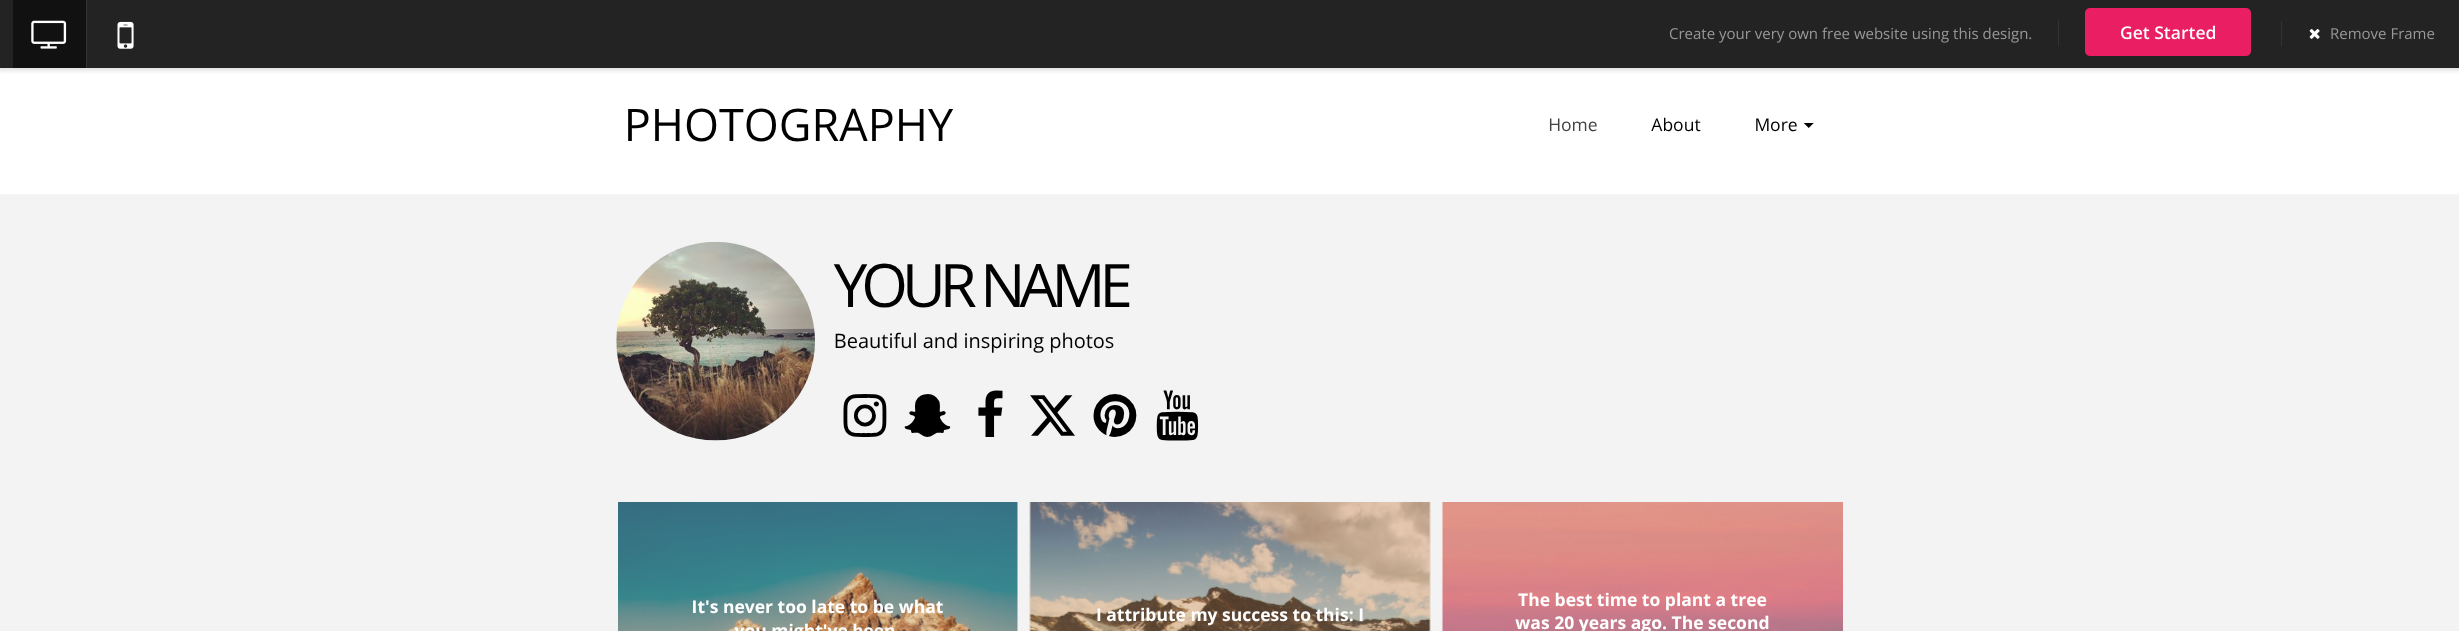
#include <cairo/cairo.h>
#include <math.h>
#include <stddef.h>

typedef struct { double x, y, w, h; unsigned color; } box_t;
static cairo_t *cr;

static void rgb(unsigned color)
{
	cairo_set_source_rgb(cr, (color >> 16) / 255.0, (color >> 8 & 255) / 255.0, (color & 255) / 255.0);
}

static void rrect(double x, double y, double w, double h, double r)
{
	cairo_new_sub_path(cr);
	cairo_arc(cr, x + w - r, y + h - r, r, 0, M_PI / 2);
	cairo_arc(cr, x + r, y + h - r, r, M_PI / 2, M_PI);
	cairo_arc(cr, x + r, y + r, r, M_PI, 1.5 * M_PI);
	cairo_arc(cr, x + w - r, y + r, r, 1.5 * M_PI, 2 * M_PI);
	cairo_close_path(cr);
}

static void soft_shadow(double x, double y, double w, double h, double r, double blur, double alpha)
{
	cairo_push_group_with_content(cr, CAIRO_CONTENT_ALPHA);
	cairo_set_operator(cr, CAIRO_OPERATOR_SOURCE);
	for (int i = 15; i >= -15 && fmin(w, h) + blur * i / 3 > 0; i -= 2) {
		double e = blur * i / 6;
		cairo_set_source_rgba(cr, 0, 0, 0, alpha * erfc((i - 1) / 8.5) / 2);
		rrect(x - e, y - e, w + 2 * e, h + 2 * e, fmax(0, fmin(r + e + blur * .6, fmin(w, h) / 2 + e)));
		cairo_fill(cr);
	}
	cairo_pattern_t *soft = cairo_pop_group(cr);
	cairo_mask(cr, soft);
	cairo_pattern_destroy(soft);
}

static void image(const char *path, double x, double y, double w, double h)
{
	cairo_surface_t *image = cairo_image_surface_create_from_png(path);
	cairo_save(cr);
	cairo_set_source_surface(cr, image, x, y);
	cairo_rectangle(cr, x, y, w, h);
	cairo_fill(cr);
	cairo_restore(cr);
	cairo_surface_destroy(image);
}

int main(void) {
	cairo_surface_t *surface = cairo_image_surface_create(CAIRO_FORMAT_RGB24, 2459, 631);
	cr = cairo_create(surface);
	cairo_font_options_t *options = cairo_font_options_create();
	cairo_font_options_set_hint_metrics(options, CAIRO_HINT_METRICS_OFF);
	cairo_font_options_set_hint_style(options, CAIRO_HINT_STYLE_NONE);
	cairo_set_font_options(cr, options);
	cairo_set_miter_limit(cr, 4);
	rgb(0xffffff);
	cairo_paint(cr);
	rgb(0x000000);
	soft_shadow(0, 3, 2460, 67, 0, 2.5, 0.15);
	{
		static const box_t items[] = {
			{0, 0, 2459, 68, 0x232323},
			{13, 0, 73, 68, 0x111111},
			{86, 0, 1, 68, 0x333333},
		};
		for (size_t i = 0; i < sizeof items / sizeof *items; i++) {
			rgb(items[i].color);
			cairo_rectangle(cr, items[i].x, items[i].y, items[i].w, items[i].h);
			cairo_fill(cr);
		}
	}
	image("img/1.png", 31, 20, 36, 29);
	image("img/2.png", 117, 21, 17, 28);
	cairo_rectangle(cr, 2058, 20, 1, 26);
	cairo_fill(cr);
	rgb(0xe91e63);
	rrect(2085, 8, 166, 48, 5);
	cairo_fill(cr);
	rgb(0x333333);
	cairo_rectangle(cr, 2281, 21, 1, 25);
	cairo_fill(cr);
	image("img/3.png", 2309, 29, 11, 10);
	image("img/4.png", 0, 108, 2459, 523);
	cairo_select_font_face(cr, "Open Sans", CAIRO_FONT_SLANT_NORMAL, CAIRO_FONT_WEIGHT_NORMAL);
	cairo_set_font_size(cr, 15);
	rgb(0x999999);
	cairo_move_to(cr, 1669, 39);
	cairo_show_text(cr, "Create your very own free website using this design.");
	cairo_select_font_face(cr, "Open Sans SemiBold", CAIRO_FONT_SLANT_NORMAL, CAIRO_FONT_WEIGHT_NORMAL);
	cairo_set_font_size(cr, 17.5);
	rgb(0xffffff);
	cairo_move_to(cr, 2120, 39);
	cairo_show_text(cr, "Get Started");
	cairo_select_font_face(cr, "Open Sans", CAIRO_FONT_SLANT_NORMAL, CAIRO_FONT_WEIGHT_NORMAL);
	cairo_set_font_size(cr, 15);
	rgb(0x999999);
	cairo_move_to(cr, 2330, 39);
	cairo_show_text(cr, "Remove Frame");
	cairo_surface_write_to_png(surface, "page.png");
	cairo_font_options_destroy(options);
	cairo_destroy(cr);
	cairo_surface_destroy(surface);
	return 0;
}
